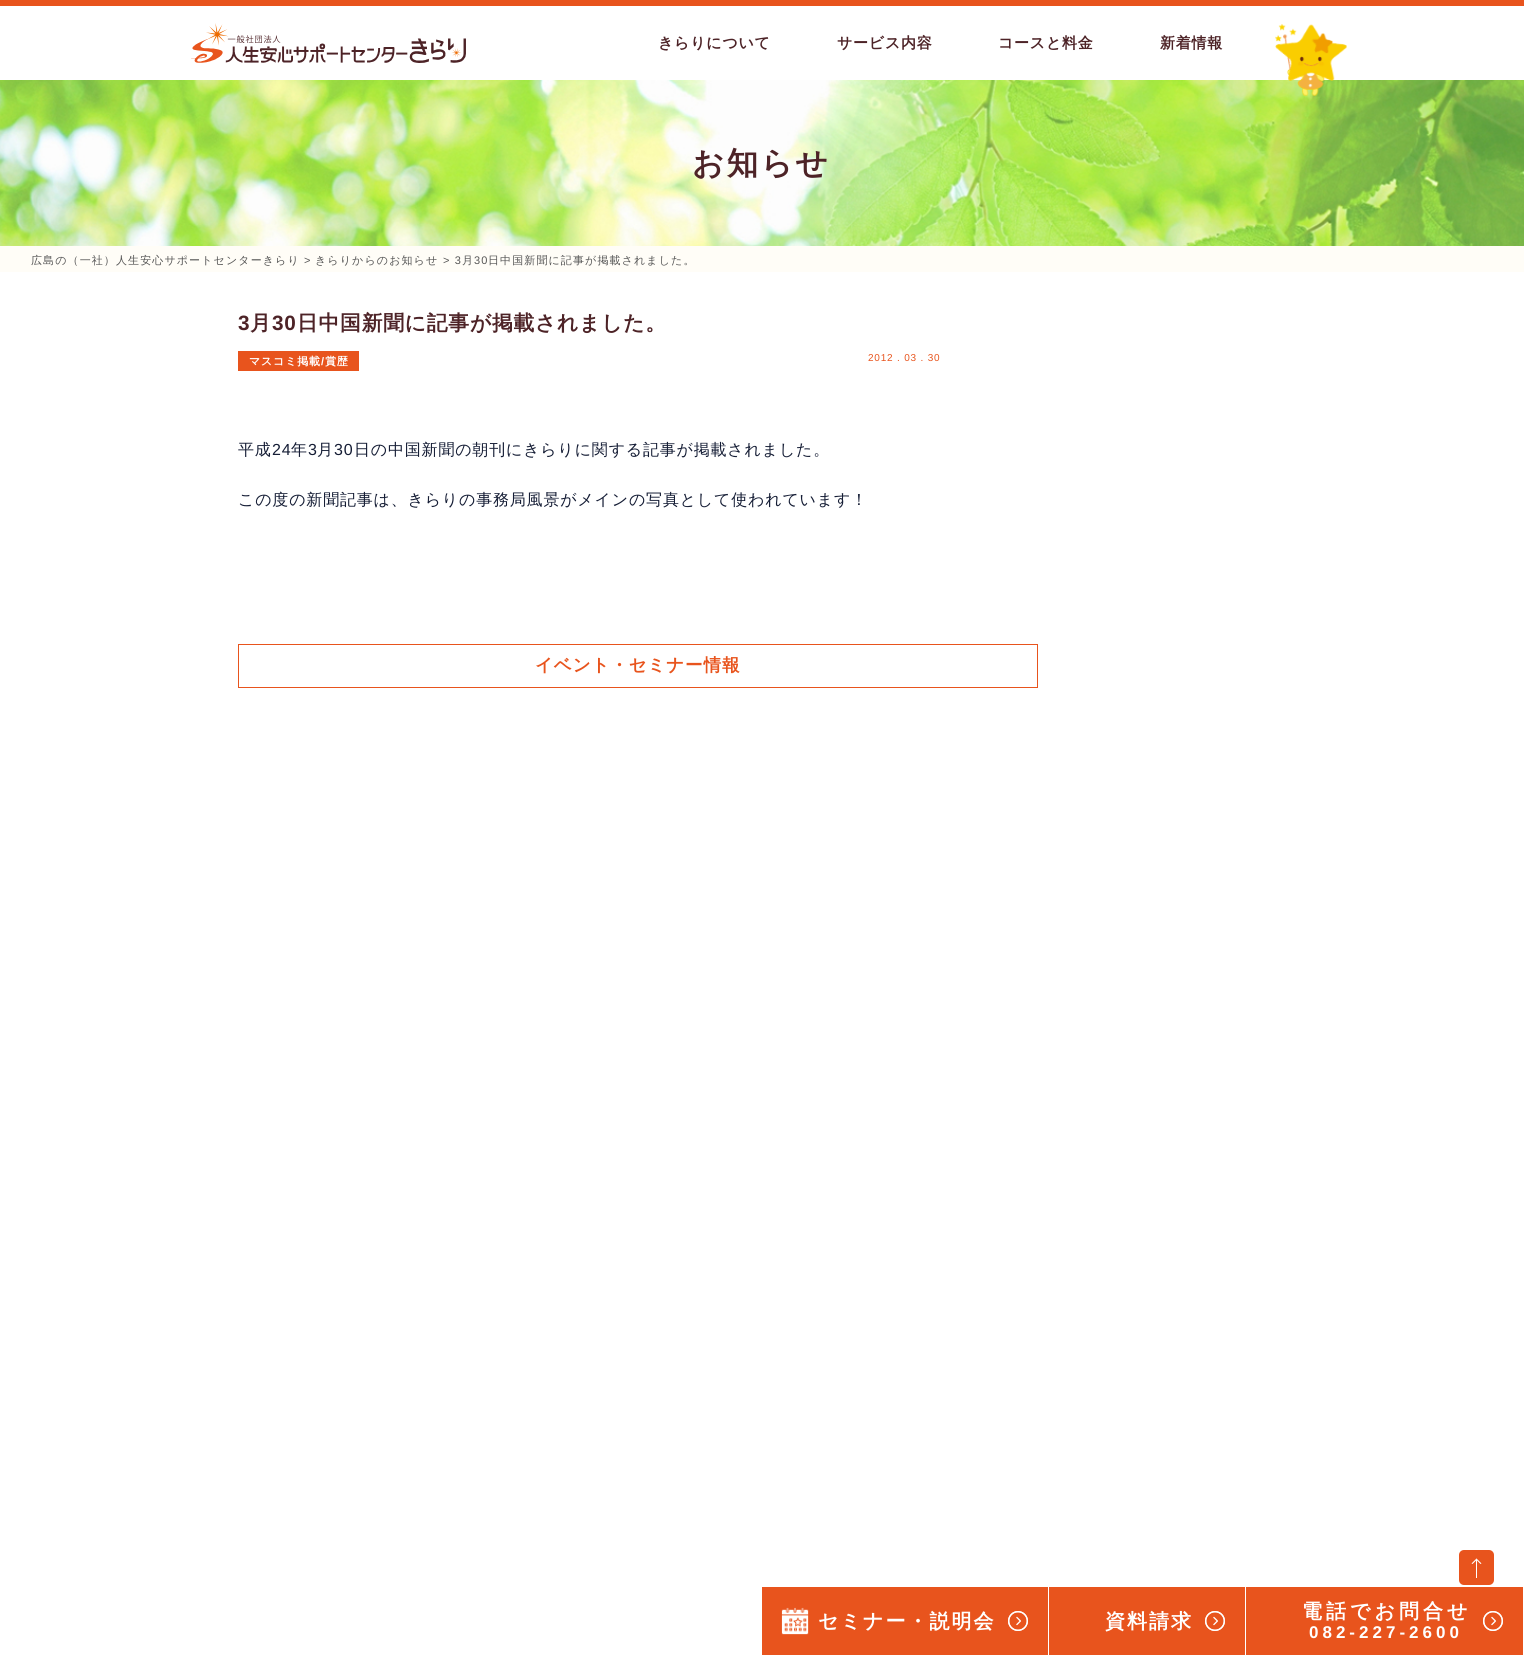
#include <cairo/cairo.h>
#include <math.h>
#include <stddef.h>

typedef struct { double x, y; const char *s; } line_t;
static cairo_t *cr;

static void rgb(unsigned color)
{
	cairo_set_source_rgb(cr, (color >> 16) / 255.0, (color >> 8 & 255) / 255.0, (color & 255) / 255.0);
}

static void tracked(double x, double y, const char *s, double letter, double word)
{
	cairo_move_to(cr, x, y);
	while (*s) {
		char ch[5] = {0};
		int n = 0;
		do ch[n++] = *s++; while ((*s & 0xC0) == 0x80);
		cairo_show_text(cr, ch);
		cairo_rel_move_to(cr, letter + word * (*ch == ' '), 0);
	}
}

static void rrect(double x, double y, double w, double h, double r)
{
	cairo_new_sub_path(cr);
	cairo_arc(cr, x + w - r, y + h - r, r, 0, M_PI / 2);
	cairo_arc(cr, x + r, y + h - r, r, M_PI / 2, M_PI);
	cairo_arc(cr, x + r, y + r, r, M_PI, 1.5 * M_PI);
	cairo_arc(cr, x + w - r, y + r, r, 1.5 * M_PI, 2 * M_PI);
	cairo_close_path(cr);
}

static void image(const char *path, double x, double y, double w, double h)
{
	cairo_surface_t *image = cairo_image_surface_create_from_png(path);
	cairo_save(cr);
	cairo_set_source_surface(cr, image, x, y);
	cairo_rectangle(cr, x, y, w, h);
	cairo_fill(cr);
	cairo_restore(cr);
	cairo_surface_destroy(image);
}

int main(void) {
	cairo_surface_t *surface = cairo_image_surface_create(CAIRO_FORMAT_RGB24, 1524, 1655);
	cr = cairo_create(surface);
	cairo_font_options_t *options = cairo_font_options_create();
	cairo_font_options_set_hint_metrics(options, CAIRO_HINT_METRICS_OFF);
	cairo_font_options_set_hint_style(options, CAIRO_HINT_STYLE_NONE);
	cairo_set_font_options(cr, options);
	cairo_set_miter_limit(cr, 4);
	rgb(0xffffff);
	cairo_paint(cr);
	rgb(0xe8541d);
	cairo_rectangle(cr, 0, 0, 1524, 6);
	cairo_fill(cr);
	image("img/1.png", 191, 23, 275, 40);
	image("img/3.png", 0, 80, 1524, 166);
	image("img/2.png", 1275, 24, 72, 72);
	rgb(0xfffdf7);
	cairo_rectangle(cr, 0, 246, 1524, 26);
	cairo_fill(cr);
	rgb(0xe8541d);
	cairo_rectangle(cr, 238, 351, 121, 20);
	cairo_fill(cr);
	cairo_rectangle(cr, 238.5, 644.5, 799, 43);
	cairo_set_line_width(cr, 1);
	cairo_stroke(cr);
	rrect(1459, 1550, 35, 35, 5);
	cairo_fill(cr);
	rgb(0xffffff);
	cairo_rectangle(cr, 1476, 1560, 1, 18);
	cairo_fill(cr);
	cairo_new_path(cr);
	cairo_move_to(cr, 1471.5, 1563.5);
	cairo_line_to(cr, 1476.5, 1558.5);
	cairo_line_to(cr, 1477, 1559.5);
	cairo_line_to(cr, 1472.5, 1564);
	cairo_close_path(cr);
	cairo_fill(cr);
	cairo_new_path(cr);
	cairo_move_to(cr, 1476, 1559.5);
	cairo_line_to(cr, 1476.5, 1558.5);
	cairo_line_to(cr, 1481.5, 1563.5);
	cairo_line_to(cr, 1480.5, 1564);
	cairo_close_path(cr);
	cairo_fill(cr);
	rgb(0xe8541d);
	cairo_rectangle(cr, 762, 1587, 286, 68);
	cairo_fill(cr);
	image("img/4.png", 781, 1607, 28, 28);
	image("img/5.png", 1008, 1611, 20, 20);
	cairo_rectangle(cr, 1049, 1587, 196, 68);
	cairo_fill(cr);
	image("img/5.png", 1205, 1611, 20, 20);
	cairo_rectangle(cr, 1246, 1587, 277, 68);
	cairo_fill(cr);
	image("img/5.png", 1483, 1611, 20, 20);
	cairo_select_font_face(cr, "WenQuanYi Zen Hei", CAIRO_FONT_SLANT_NORMAL, CAIRO_FONT_WEIGHT_BOLD);
	cairo_set_font_size(cr, 15);
	rgb(0x4d2327);
	{
		static const line_t items[] = {
			{658, 48, "きらりについて"},
			{837, 48, "サービス内容"},
			{998, 48, "コースと料金"},
			{1160, 48, "新着情報"},
		};
		for (size_t i = 0; i < sizeof items / sizeof *items; i++) {
			tracked(items[i].x, items[i].y, items[i].s, 0.75, 0);
		}
	}
	cairo_set_font_size(cr, 31.5);
	tracked(692, 174, "お知らせ", 2.5, 0);
	cairo_select_font_face(cr, "WenQuanYi Zen Hei Medium", CAIRO_FONT_SLANT_NORMAL, CAIRO_FONT_WEIGHT_NORMAL);
	cairo_set_font_size(cr, 11);
	rgb(0x555555);
	tracked(31, 264, "広島の（一社）人生安心サポートセンターきらり", 1.1, 0);
	cairo_select_font_face(cr, "Liberation Sans", CAIRO_FONT_SLANT_NORMAL, CAIRO_FONT_WEIGHT_NORMAL);
	tracked(304, 264, ">", 1.1, 0);
	cairo_select_font_face(cr, "WenQuanYi Zen Hei Medium", CAIRO_FONT_SLANT_NORMAL, CAIRO_FONT_WEIGHT_NORMAL);
	tracked(315, 264, "きらりからのお知らせ", 1.1, 0);
	cairo_select_font_face(cr, "Liberation Sans", CAIRO_FONT_SLANT_NORMAL, CAIRO_FONT_WEIGHT_NORMAL);
	tracked(443, 264, "> 3", 1.1, 0);
	cairo_select_font_face(cr, "WenQuanYi Zen Hei Medium", CAIRO_FONT_SLANT_NORMAL, CAIRO_FONT_WEIGHT_NORMAL);
	tracked(462, 264, "月", 1.1, 0);
	cairo_select_font_face(cr, "Liberation Sans", CAIRO_FONT_SLANT_NORMAL, CAIRO_FONT_WEIGHT_NORMAL);
	tracked(474, 264, "30", 1.1, 0);
	cairo_select_font_face(cr, "WenQuanYi Zen Hei Medium", CAIRO_FONT_SLANT_NORMAL, CAIRO_FONT_WEIGHT_NORMAL);
	tracked(488, 264, "日中国新聞に記事が掲載されました。", 1.1, 0);
	cairo_select_font_face(cr, "Liberation Sans", CAIRO_FONT_SLANT_NORMAL, CAIRO_FONT_WEIGHT_BOLD);
	cairo_set_font_size(cr, 20.75);
	rgb(0x4d2327);
	tracked(238, 330, "3", 0.8, 0);
	cairo_select_font_face(cr, "WenQuanYi Zen Hei", CAIRO_FONT_SLANT_NORMAL, CAIRO_FONT_WEIGHT_BOLD);
	tracked(250, 330, "月", 0.8, 0);
	cairo_select_font_face(cr, "Liberation Sans", CAIRO_FONT_SLANT_NORMAL, CAIRO_FONT_WEIGHT_BOLD);
	tracked(272, 330, "30", 0.8, 0);
	cairo_select_font_face(cr, "WenQuanYi Zen Hei", CAIRO_FONT_SLANT_NORMAL, CAIRO_FONT_WEIGHT_BOLD);
	tracked(297, 330, "日中国新聞に記事が掲載されました。", 0.8, 0);
	cairo_set_font_size(cr, 11);
	rgb(0xffffff);
	tracked(249, 365, "マスコミ掲載 賞歴", 0.8, 0);
	cairo_select_font_face(cr, "Liberation Sans", CAIRO_FONT_SLANT_NORMAL, CAIRO_FONT_WEIGHT_BOLD);
	tracked(321, 365, "/", 0.8, 0);
	cairo_select_font_face(cr, "Liberation Sans", CAIRO_FONT_SLANT_NORMAL, CAIRO_FONT_WEIGHT_NORMAL);
	cairo_set_font_size(cr, 10);
	rgb(0xe8541d);
	tracked(868, 361, "2012 . 03 . 30", 0.8, 0);
	cairo_select_font_face(cr, "WenQuanYi Zen Hei Medium", CAIRO_FONT_SLANT_NORMAL, CAIRO_FONT_WEIGHT_NORMAL);
	cairo_set_font_size(cr, 16);
	rgb(0x151d35);
	tracked(238, 455, "平成", 0.8, 0);
	cairo_select_font_face(cr, "Liberation Sans", CAIRO_FONT_SLANT_NORMAL, CAIRO_FONT_WEIGHT_NORMAL);
	tracked(272, 455, "24", 0.8, 0);
	cairo_select_font_face(cr, "WenQuanYi Zen Hei Medium", CAIRO_FONT_SLANT_NORMAL, CAIRO_FONT_WEIGHT_NORMAL);
	tracked(291, 455, "年", 0.8, 0);
	cairo_select_font_face(cr, "Liberation Sans", CAIRO_FONT_SLANT_NORMAL, CAIRO_FONT_WEIGHT_NORMAL);
	tracked(308, 455, "3", 0.8, 0);
	cairo_select_font_face(cr, "WenQuanYi Zen Hei Medium", CAIRO_FONT_SLANT_NORMAL, CAIRO_FONT_WEIGHT_NORMAL);
	tracked(317, 455, "月", 0.8, 0);
	cairo_select_font_face(cr, "Liberation Sans", CAIRO_FONT_SLANT_NORMAL, CAIRO_FONT_WEIGHT_NORMAL);
	tracked(334, 455, "30", 0.8, 0);
	cairo_select_font_face(cr, "WenQuanYi Zen Hei Medium", CAIRO_FONT_SLANT_NORMAL, CAIRO_FONT_WEIGHT_NORMAL);
	tracked(354, 455, "日の中国新聞の朝刊にきらりに関する記事が掲載されました。", 0.8, 0);
	tracked(238, 505, "この度の新聞記事は、きらりの事務局風景がメインの写真として使われています！", 0.8, 0);
	cairo_select_font_face(cr, "WenQuanYi Zen Hei", CAIRO_FONT_SLANT_NORMAL, CAIRO_FONT_WEIGHT_BOLD);
	cairo_set_font_size(cr, 17.6);
	rgb(0xe8541d);
	tracked(535, 671, "イベント・セミナー情報", 0.8, 0);
	cairo_set_font_size(cr, 20);
	rgb(0xffffff);
	tracked(818, 1628, "セミナー・説明会", 2, 0);
	tracked(1105, 1628, "資料請求", 2, 0);
	tracked(1302, 1618, "電話でお問合せ", 4, 0);
	cairo_select_font_face(cr, "Liberation Sans", CAIRO_FONT_SLANT_NORMAL, CAIRO_FONT_WEIGHT_BOLD);
	cairo_set_font_size(cr, 17);
	tracked(1309, 1638, "082-227-2600", 4, 0);
	cairo_surface_write_to_png(surface, "page.png");
	cairo_font_options_destroy(options);
	cairo_destroy(cr);
	cairo_surface_destroy(surface);
	return 0;
}
